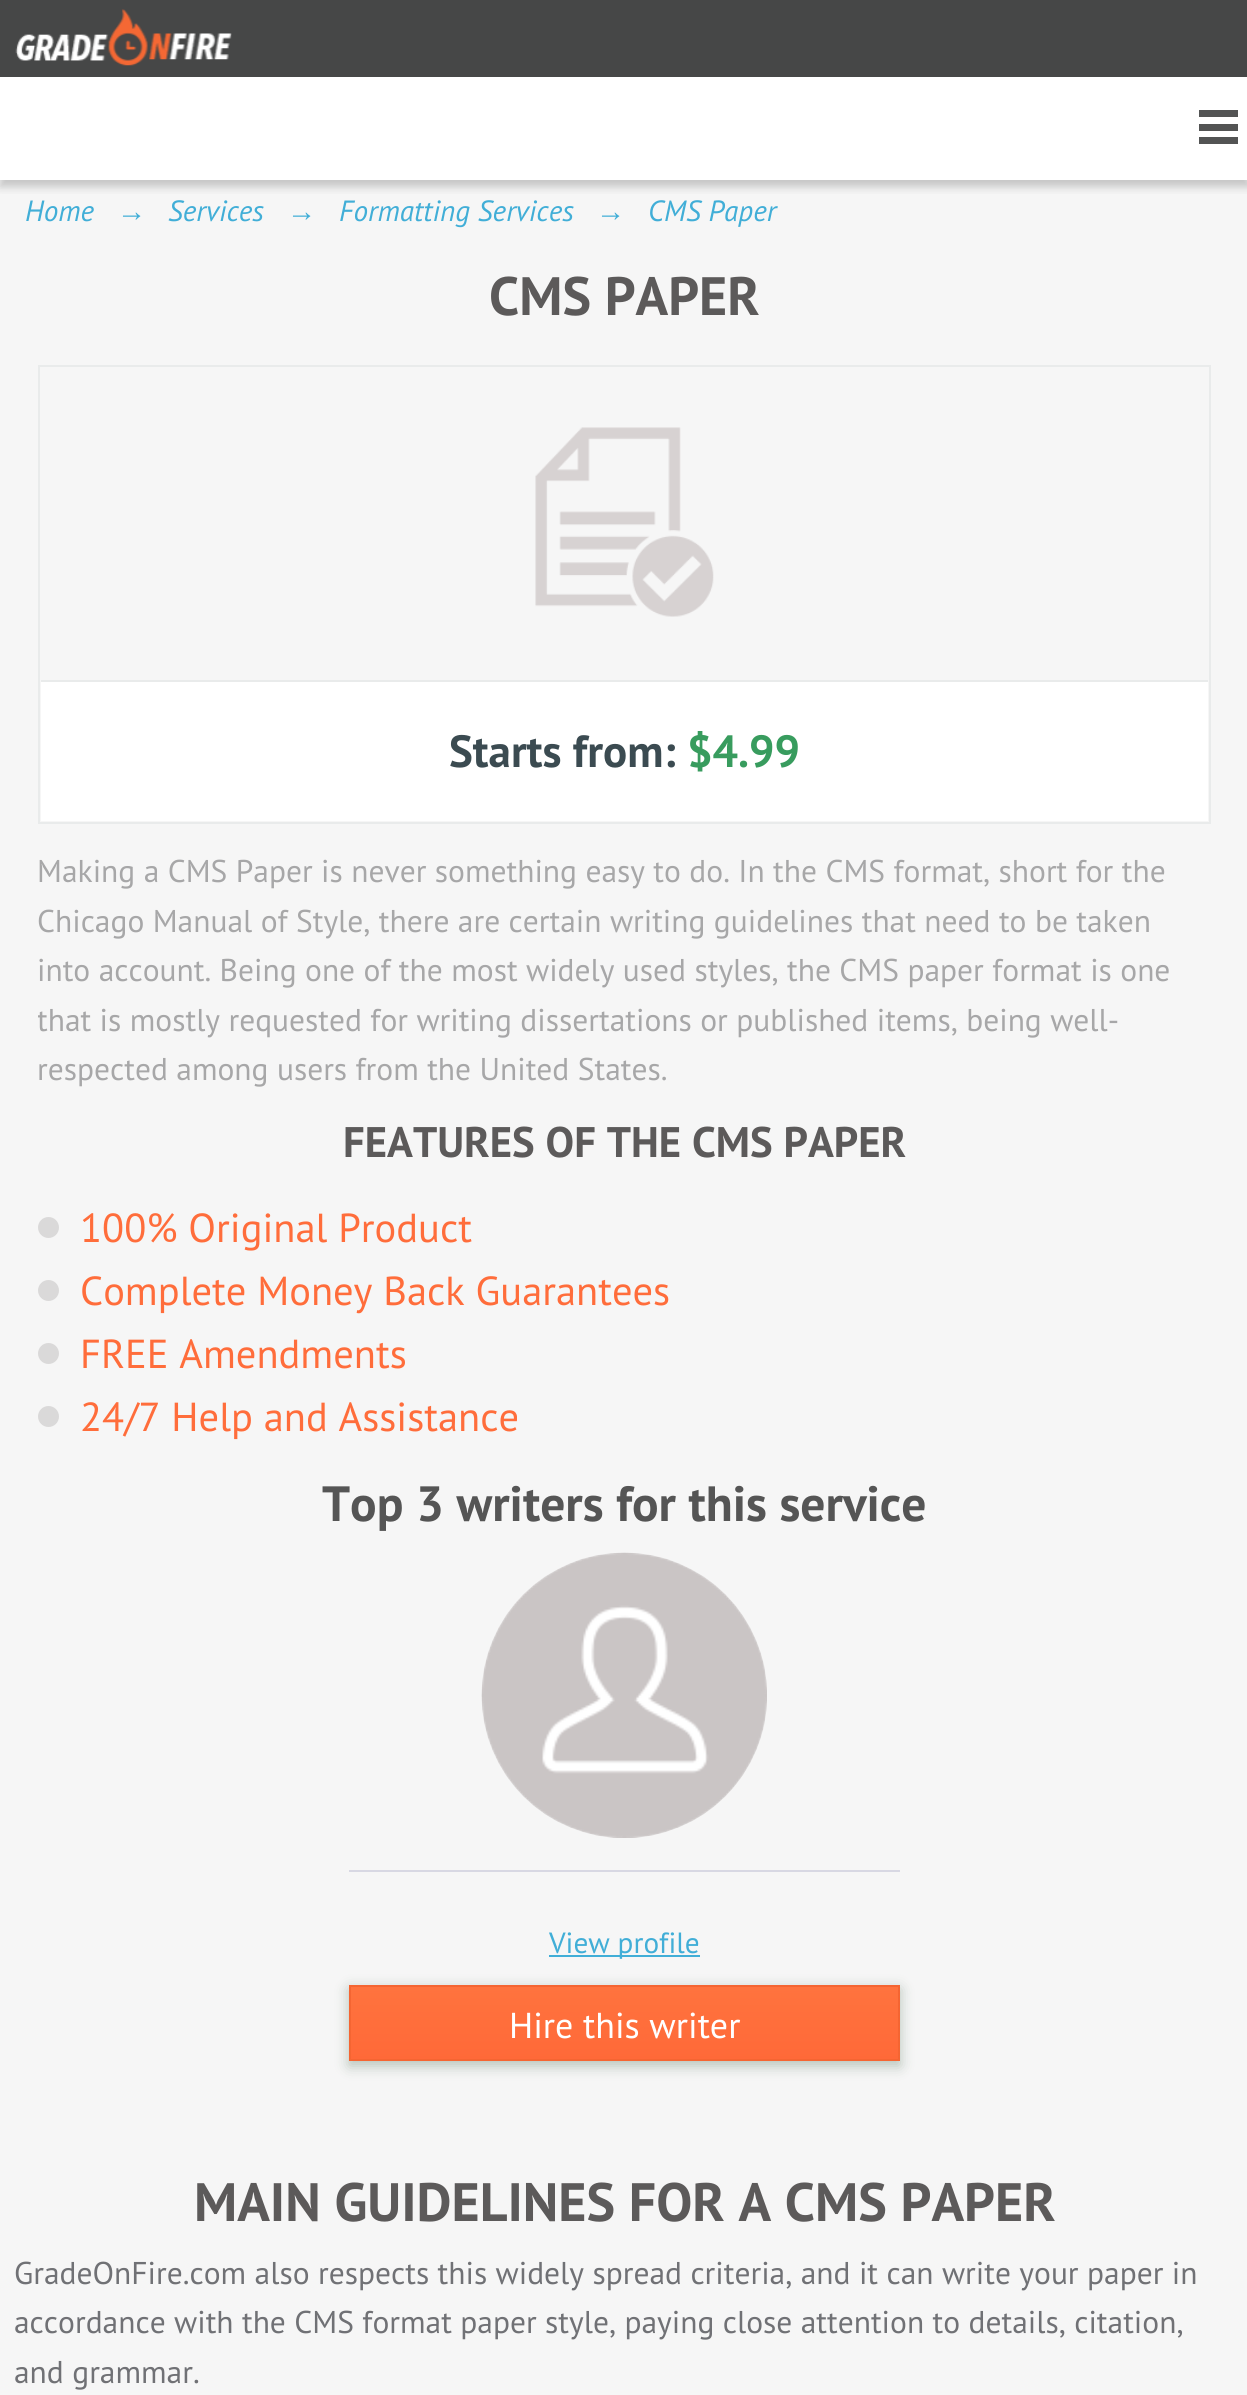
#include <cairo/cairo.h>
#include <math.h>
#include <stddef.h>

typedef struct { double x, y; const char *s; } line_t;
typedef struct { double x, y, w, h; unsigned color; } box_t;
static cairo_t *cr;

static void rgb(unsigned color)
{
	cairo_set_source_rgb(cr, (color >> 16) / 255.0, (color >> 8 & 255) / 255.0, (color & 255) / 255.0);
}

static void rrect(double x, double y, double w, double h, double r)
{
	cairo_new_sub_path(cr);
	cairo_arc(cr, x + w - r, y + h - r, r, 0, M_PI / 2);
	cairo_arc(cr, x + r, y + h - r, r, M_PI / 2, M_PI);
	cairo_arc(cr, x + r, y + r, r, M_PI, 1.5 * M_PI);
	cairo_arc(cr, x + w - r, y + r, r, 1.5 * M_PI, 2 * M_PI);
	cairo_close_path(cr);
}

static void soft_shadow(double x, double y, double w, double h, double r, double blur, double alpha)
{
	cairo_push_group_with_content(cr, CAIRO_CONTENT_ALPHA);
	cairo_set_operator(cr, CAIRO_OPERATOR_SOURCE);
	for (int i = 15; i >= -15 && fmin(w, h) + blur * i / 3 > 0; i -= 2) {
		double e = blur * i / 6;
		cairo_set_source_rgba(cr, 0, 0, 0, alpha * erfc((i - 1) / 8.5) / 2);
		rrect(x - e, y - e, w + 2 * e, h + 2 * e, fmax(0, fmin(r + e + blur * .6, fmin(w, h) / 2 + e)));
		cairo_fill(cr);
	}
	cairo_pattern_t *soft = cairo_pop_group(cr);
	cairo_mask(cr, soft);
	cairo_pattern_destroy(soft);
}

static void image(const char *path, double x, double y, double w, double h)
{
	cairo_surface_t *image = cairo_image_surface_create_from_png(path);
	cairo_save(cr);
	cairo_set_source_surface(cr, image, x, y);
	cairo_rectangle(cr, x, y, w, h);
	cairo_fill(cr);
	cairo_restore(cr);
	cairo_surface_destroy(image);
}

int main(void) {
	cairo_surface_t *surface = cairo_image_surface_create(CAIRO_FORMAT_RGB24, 1247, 2395);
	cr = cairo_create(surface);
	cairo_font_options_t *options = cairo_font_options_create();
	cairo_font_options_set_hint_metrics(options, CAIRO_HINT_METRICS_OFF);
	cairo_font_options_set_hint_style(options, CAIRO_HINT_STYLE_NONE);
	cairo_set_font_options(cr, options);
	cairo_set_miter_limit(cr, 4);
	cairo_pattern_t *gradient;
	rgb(0xf6f6f6);
	cairo_paint(cr);
	rgb(0xffffff);
	cairo_rectangle(cr, 0, 77, 1247, 103);
	cairo_fill(cr);
	rgb(0x464747);
	cairo_rectangle(cr, 0, 0, 1247, 77);
	cairo_fill(cr);
	image("img/1.png", 15, 9, 217, 57);
	cairo_save(cr);
	cairo_rectangle(cr, 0, 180, 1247, 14);
	cairo_clip(cr);
	rgb(0x535454);
	soft_shadow(0, 83, 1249, 104, 0, 4.5, 0.3);
	cairo_restore(cr);
	{
		static const box_t items[] = {
			{1199, 110, 39, 7, 0x535454},
			{1199, 124, 39, 7, 0x535454},
			{1199, 137, 39, 7, 0x535454},
		};
		for (size_t i = 0; i < sizeof items / sizeof *items; i++) {
			rgb(items[i].color);
			cairo_rectangle(cr, items[i].x, items[i].y, items[i].w, items[i].h);
			cairo_fill(cr);
		}
	}
	cairo_rectangle(cr, 39, 366, 1171, 457);
	rgb(0xe9ebeb);
	cairo_stroke(cr);
	image("img/2.png", 535, 427, 179, 190);
	rgb(0xffffff);
	cairo_rectangle(cr, 41, 682, 1167, 139);
	cairo_fill(cr);
	rgb(0xe9ebeb);
	cairo_rectangle(cr, 41, 680, 1167, 2);
	cairo_fill(cr);
	rgb(0xdad9d9);
	cairo_arc(cr, 48.5, 1227.5, 10.5, 0, 2 * M_PI);
	cairo_fill(cr);
	cairo_arc(cr, 48.5, 1290.5, 10.5, 0, 2 * M_PI);
	cairo_fill(cr);
	cairo_arc(cr, 48.5, 1353.5, 10.5, 0, 2 * M_PI);
	cairo_fill(cr);
	cairo_arc(cr, 48.5, 1416.5, 10.5, 0, 2 * M_PI);
	cairo_fill(cr);
	image("img/3.png", 481, 1552, 286, 286);
	rgb(0xd8d8e3);
	cairo_rectangle(cr, 349, 1870, 551, 2);
	cairo_fill(cr);
	rgb(0x41aed7);
	cairo_rectangle(cr, 549, 1955, 151, 2);
	cairo_fill(cr);
	rgb(0x07340f);
	soft_shadow(349, 1989, 551, 77, 0, 7, 0.27);
	gradient = cairo_pattern_create_linear(624, 1987, 624, 2059);
	cairo_pattern_add_color_stop_rgba(gradient, 0, 1, 0.451, 0.243, 1);
	cairo_pattern_add_color_stop_rgba(gradient, 1, 1, 0.412, 0.22, 1);
	cairo_set_source(cr, gradient);
	cairo_pattern_destroy(gradient);
	cairo_rectangle(cr, 351, 1987, 547, 72);
	cairo_fill(cr);
	cairo_rectangle(cr, 350, 1986, 549, 74);
	rgb(0xf56532);
	cairo_stroke(cr);
	cairo_select_font_face(cr, "PT Sans", CAIRO_FONT_SLANT_ITALIC, CAIRO_FONT_WEIGHT_NORMAL);
	cairo_set_font_size(cr, 29.25);
	rgb(0x41aed7);
	cairo_move_to(cr, 25, 221);
	cairo_show_text(cr, "Home");
	cairo_select_font_face(cr, "Liberation Sans", CAIRO_FONT_SLANT_ITALIC, CAIRO_FONT_WEIGHT_NORMAL);
	cairo_move_to(cr, 117, 221);
	cairo_show_text(cr, "→");
	cairo_select_font_face(cr, "PT Sans", CAIRO_FONT_SLANT_ITALIC, CAIRO_FONT_WEIGHT_NORMAL);
	cairo_move_to(cr, 168, 221);
	cairo_show_text(cr, "Services");
	cairo_select_font_face(cr, "Liberation Sans", CAIRO_FONT_SLANT_ITALIC, CAIRO_FONT_WEIGHT_NORMAL);
	cairo_move_to(cr, 287, 221);
	cairo_show_text(cr, "→");
	cairo_select_font_face(cr, "PT Sans", CAIRO_FONT_SLANT_ITALIC, CAIRO_FONT_WEIGHT_NORMAL);
	cairo_move_to(cr, 339, 221);
	cairo_show_text(cr, "Formatting Services");
	cairo_select_font_face(cr, "Liberation Sans", CAIRO_FONT_SLANT_ITALIC, CAIRO_FONT_WEIGHT_NORMAL);
	cairo_move_to(cr, 596, 221);
	cairo_show_text(cr, "→");
	cairo_select_font_face(cr, "PT Sans", CAIRO_FONT_SLANT_ITALIC, CAIRO_FONT_WEIGHT_NORMAL);
	cairo_move_to(cr, 648, 221);
	cairo_show_text(cr, "CMS Paper");
	cairo_select_font_face(cr, "PT Sans", CAIRO_FONT_SLANT_NORMAL, CAIRO_FONT_WEIGHT_BOLD);
	cairo_set_font_size(cr, 54);
	rgb(0x5c5a5a);
	cairo_move_to(cr, 489, 315);
	cairo_show_text(cr, "CMS PAPER");
	cairo_set_font_size(cr, 45);
	rgb(0x3b4b51);
	cairo_move_to(cr, 449, 767);
	cairo_show_text(cr, "Starts from:");
	rgb(0x389c5e);
	cairo_move_to(cr, 687, 767);
	cairo_show_text(cr, "$4.99");
	cairo_select_font_face(cr, "PT Sans", CAIRO_FONT_SLANT_NORMAL, CAIRO_FONT_WEIGHT_NORMAL);
	cairo_set_font_size(cr, 31.5);
	rgb(0xa7a7a8);
	{
		static const line_t items[] = {
			{37, 882, "Making a CMS Paper is never something easy to do. In the CMS format, short for the"},
			{37, 932, "Chicago Manual of Style, there are certain writing guidelines that need to be taken"},
			{37, 981, "into account. Being one of the most widely used styles, the CMS paper format is one"},
		};
		for (size_t i = 0; i < sizeof items / sizeof *items; i++) {
			cairo_move_to(cr, items[i].x, items[i].y);
			cairo_show_text(cr, items[i].s);
		}
	}
	cairo_save(cr);
	cairo_rectangle(cr, 38, 846, 1173, 248);
	cairo_clip(cr);
	cairo_move_to(cr, 37, 1031);
	cairo_show_text(cr, "that is mostly requested for writing dissertations or published items, being well-");
	cairo_restore(cr);
	cairo_move_to(cr, 37, 1080);
	cairo_show_text(cr, "respected among users from the United States.");
	cairo_select_font_face(cr, "PT Sans", CAIRO_FONT_SLANT_NORMAL, CAIRO_FONT_WEIGHT_BOLD);
	cairo_set_font_size(cr, 42.75);
	rgb(0x5c5a5a);
	cairo_move_to(cr, 343, 1157);
	cairo_show_text(cr, "FEATURES OF THE CMS PAPER");
	cairo_select_font_face(cr, "PT Sans", CAIRO_FONT_SLANT_NORMAL, CAIRO_FONT_WEIGHT_NORMAL);
	cairo_set_font_size(cr, 40.5);
	rgb(0xff6d3b);
	{
		static const line_t items[] = {
			{80, 1242, "100% Original Product"},
			{80, 1305, "Complete Money Back Guarantees"},
			{80, 1368, "FREE Amendments"},
			{80, 1431, "24/7 Help and Assistance"},
		};
		for (size_t i = 0; i < sizeof items / sizeof *items; i++) {
			cairo_move_to(cr, items[i].x, items[i].y);
			cairo_show_text(cr, items[i].s);
		}
	}
	cairo_select_font_face(cr, "PT Sans", CAIRO_FONT_SLANT_NORMAL, CAIRO_FONT_WEIGHT_BOLD);
	cairo_set_font_size(cr, 49.5);
	rgb(0x555555);
	cairo_move_to(cr, 322, 1521);
	cairo_show_text(cr, "Top 3 writers for this service");
	cairo_select_font_face(cr, "PT Sans", CAIRO_FONT_SLANT_NORMAL, CAIRO_FONT_WEIGHT_NORMAL);
	cairo_set_font_size(cr, 29.25);
	rgb(0x41aed7);
	cairo_move_to(cr, 549, 1953);
	cairo_show_text(cr, "View profile");
	cairo_set_font_size(cr, 36);
	rgb(0xffffff);
	cairo_move_to(cr, 509, 2038);
	cairo_show_text(cr, "Hire this writer");
	cairo_select_font_face(cr, "PT Sans", CAIRO_FONT_SLANT_NORMAL, CAIRO_FONT_WEIGHT_BOLD);
	cairo_set_font_size(cr, 54);
	rgb(0x5c5a5a);
	cairo_move_to(cr, 194, 2221);
	cairo_show_text(cr, "MAIN GUIDELINES FOR A CMS PAPER");
	cairo_select_font_face(cr, "PT Sans", CAIRO_FONT_SLANT_NORMAL, CAIRO_FONT_WEIGHT_NORMAL);
	cairo_set_font_size(cr, 31.5);
	rgb(0x707175);
	{
		static const line_t items[] = {
			{14, 2284, "GradeOnFire.com also respects this widely spread criteria, and it can write your paper in"},
			{14, 2333, "accordance with the CMS format paper style, paying close attention to details, citation,"},
			{14, 2383, "and grammar."},
		};
		for (size_t i = 0; i < sizeof items / sizeof *items; i++) {
			cairo_move_to(cr, items[i].x, items[i].y);
			cairo_show_text(cr, items[i].s);
		}
	}
	cairo_surface_write_to_png(surface, "page.png");
	cairo_font_options_destroy(options);
	cairo_destroy(cr);
	cairo_surface_destroy(surface);
	return 0;
}
